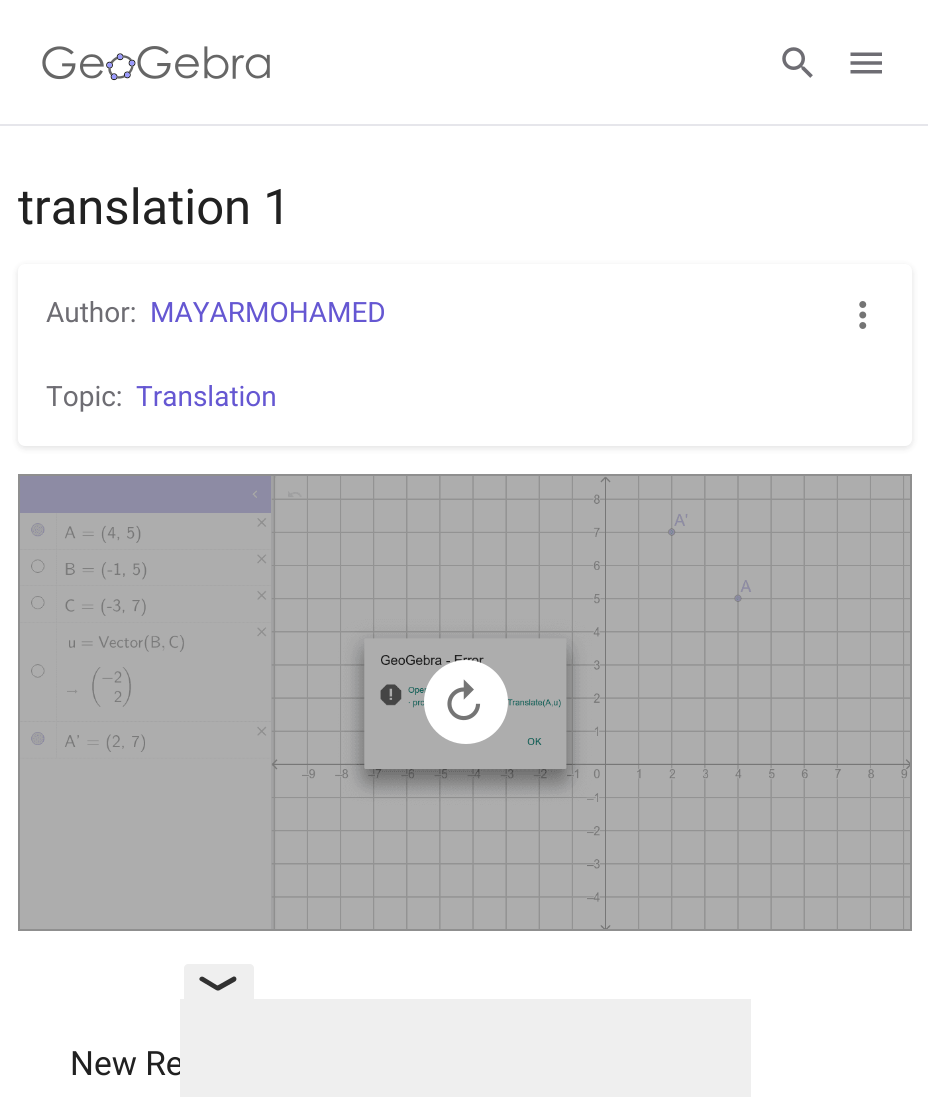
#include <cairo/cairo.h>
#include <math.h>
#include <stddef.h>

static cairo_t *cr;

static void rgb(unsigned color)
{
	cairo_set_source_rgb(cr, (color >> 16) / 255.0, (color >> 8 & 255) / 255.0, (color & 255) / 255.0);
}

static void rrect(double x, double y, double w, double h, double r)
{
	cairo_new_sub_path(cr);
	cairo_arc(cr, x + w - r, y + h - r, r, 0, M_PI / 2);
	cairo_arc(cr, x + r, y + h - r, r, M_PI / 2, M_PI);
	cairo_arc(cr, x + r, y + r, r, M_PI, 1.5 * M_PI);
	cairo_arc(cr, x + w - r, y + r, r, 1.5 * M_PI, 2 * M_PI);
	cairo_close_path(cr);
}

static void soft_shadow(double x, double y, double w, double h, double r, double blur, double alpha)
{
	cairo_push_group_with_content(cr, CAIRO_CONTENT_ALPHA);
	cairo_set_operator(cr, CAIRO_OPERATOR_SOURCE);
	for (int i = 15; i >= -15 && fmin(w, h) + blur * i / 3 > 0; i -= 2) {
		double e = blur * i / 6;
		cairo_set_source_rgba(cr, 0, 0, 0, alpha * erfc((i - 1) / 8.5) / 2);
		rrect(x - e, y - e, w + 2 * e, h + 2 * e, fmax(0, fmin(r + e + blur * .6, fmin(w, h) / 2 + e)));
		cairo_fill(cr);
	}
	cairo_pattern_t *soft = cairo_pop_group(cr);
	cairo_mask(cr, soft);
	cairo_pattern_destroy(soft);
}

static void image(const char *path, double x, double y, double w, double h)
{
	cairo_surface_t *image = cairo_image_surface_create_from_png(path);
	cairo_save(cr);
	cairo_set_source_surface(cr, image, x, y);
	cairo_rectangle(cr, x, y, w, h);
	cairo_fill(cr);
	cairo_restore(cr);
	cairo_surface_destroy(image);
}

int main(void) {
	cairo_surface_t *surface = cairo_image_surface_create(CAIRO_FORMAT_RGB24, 928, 1097);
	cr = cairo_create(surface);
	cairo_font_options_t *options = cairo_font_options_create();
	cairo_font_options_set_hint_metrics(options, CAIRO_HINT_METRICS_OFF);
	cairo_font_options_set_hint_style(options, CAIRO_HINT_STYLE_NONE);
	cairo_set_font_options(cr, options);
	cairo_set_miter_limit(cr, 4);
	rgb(0xffffff);
	cairo_paint(cr);
	rgb(0xe6e6eb);
	cairo_rectangle(cr, 0, 124, 928, 2);
	cairo_fill(cr);
	image("img/1.png", 42, 46, 228, 35);
	image("img/2.png", 782, 47, 31, 31);
	image("img/3.png", 850, 52, 32, 22);
	rgb(0x1c1c1f);
	soft_shadow(18, 266, 894, 182, 7, 3.5, 0.14);
	rgb(0xffffff);
	rrect(18, 264, 894, 182, 7);
	cairo_fill(cr);
	image("img/4.png", 859, 301, 8, 28);
	image("img/5.png", 20, 476, 890, 453);
	cairo_rectangle(cr, 19, 475, 892, 455);
	rgb(0x8f8f8f);
	cairo_stroke(cr);
	rgb(0xffffff);
	cairo_arc(cr, 466, 702, 42, 0, 2 * M_PI);
	cairo_fill(cr);
	image("img/6.png", 447, 679, 34, 42);
	rgb(0xefefef);
	cairo_new_path(cr);
	cairo_move_to(cr, 188, 964);
	cairo_line_to(cr, 250, 964);
	cairo_curve_to(cr, 252, 964, 254, 966, 254, 968);
	cairo_line_to(cr, 254, 999);
	cairo_line_to(cr, 184, 999);
	cairo_line_to(cr, 184, 968);
	cairo_curve_to(cr, 184, 966, 186, 964, 188, 964);
	cairo_close_path(cr);
	cairo_fill(cr);
	rgb(0x313131);
	cairo_new_path(cr);
	cairo_move_to(cr, 203.5, 977);
	cairo_line_to(cr, 219, 986.5);
	cairo_curve_to(cr, 221, 988.5, 218, 991.5, 216, 990);
	cairo_line_to(cr, 200, 980.5);
	cairo_curve_to(cr, 198, 978.5, 201, 975.5, 203.5, 977);
	cairo_close_path(cr);
	cairo_fill(cr);
	cairo_new_path(cr);
	cairo_move_to(cr, 217.5, 985.5);
	cairo_line_to(cr, 233.5, 976.5);
	cairo_curve_to(cr, 236.5, 976, 237.5, 980, 235, 981.5);
	cairo_line_to(cr, 219, 990.5);
	cairo_curve_to(cr, 216, 991, 215, 987, 217.5, 985.5);
	cairo_close_path(cr);
	cairo_fill(cr);
	cairo_select_font_face(cr, "Roboto", CAIRO_FONT_SLANT_NORMAL, CAIRO_FONT_WEIGHT_NORMAL);
	cairo_set_font_size(cr, 49);
	rgb(0x212121);
	cairo_move_to(cr, 18, 224);
	cairo_show_text(cr, "translation 1");
	cairo_set_font_size(cr, 28);
	rgb(0x6e6d73);
	cairo_move_to(cr, 46, 322);
	cairo_show_text(cr, "Author:");
	rgb(0x6557d2);
	cairo_move_to(cr, 150, 322);
	cairo_show_text(cr, "MAYARMOHAMED");
	rgb(0x6e6d73);
	cairo_move_to(cr, 46, 406);
	cairo_show_text(cr, "Topic:");
	rgb(0x6557d2);
	cairo_move_to(cr, 136, 406);
	cairo_show_text(cr, "Translation");
	cairo_set_font_size(cr, 33.5);
	rgb(0x212121);
	cairo_move_to(cr, 70, 1075);
	cairo_show_text(cr, "New Re");
	rgb(0xefefef);
	cairo_rectangle(cr, 180, 999, 571, 98);
	cairo_fill(cr);
	cairo_surface_write_to_png(surface, "page.png");
	cairo_font_options_destroy(options);
	cairo_destroy(cr);
	cairo_surface_destroy(surface);
	return 0;
}
